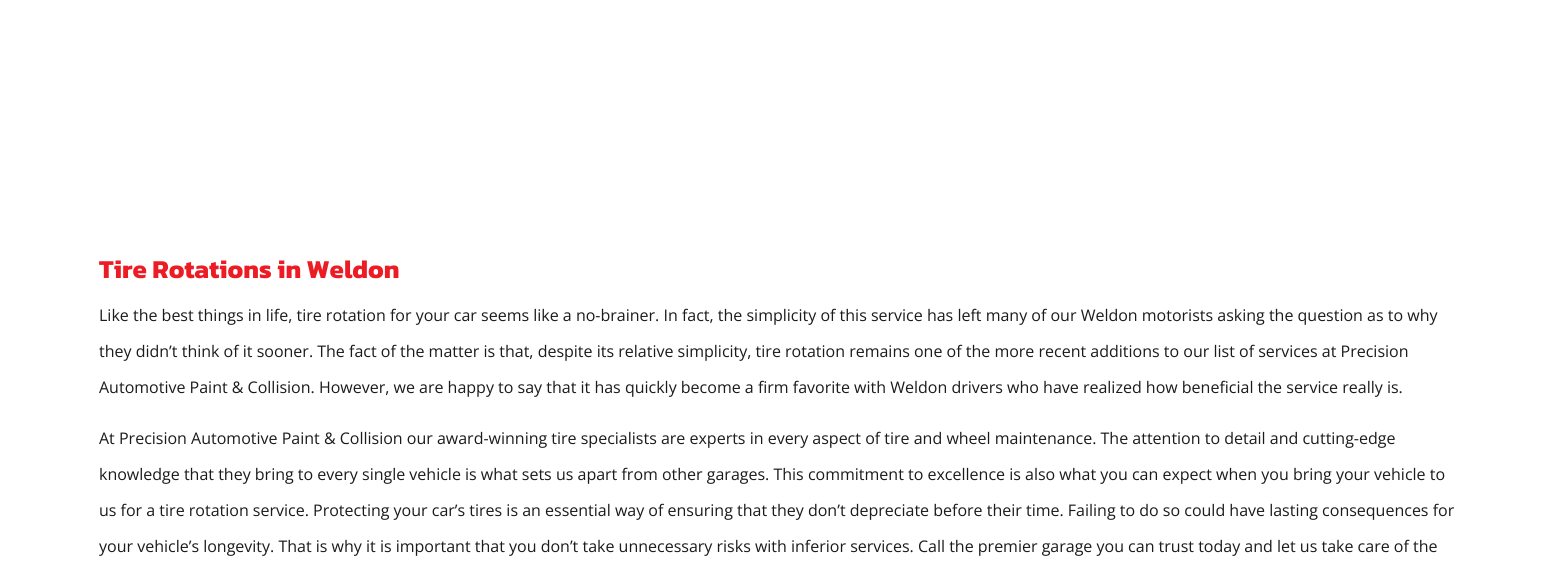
#include <cairo/cairo.h>
#include <math.h>
#include <stddef.h>

typedef struct { double x, y; const char *s; } line_t;
static cairo_t *cr;

static void rgb(unsigned color)
{
	cairo_set_source_rgb(cr, (color >> 16) / 255.0, (color >> 8 & 255) / 255.0, (color & 255) / 255.0);
}

int main(void) {
	cairo_surface_t *surface = cairo_image_surface_create(CAIRO_FORMAT_RGB24, 1557, 571);
	cr = cairo_create(surface);
	cairo_font_options_t *options = cairo_font_options_create();
	cairo_font_options_set_hint_metrics(options, CAIRO_HINT_METRICS_OFF);
	cairo_font_options_set_hint_style(options, CAIRO_HINT_STYLE_NONE);
	cairo_set_font_options(cr, options);
	cairo_set_miter_limit(cr, 4);
	rgb(0xffffff);
	cairo_paint(cr);
	cairo_select_font_face(cr, "Kanit", CAIRO_FONT_SLANT_NORMAL, CAIRO_FONT_WEIGHT_BOLD);
	cairo_set_font_size(cr, 26);
	rgb(0xed1c24);
	cairo_move_to(cr, 99, 278);
	cairo_show_text(cr, "Tire Rotations in Weldon");
	cairo_select_font_face(cr, "Open Sans", CAIRO_FONT_SLANT_NORMAL, CAIRO_FONT_WEIGHT_NORMAL);
	cairo_set_font_size(cr, 16);
	rgb(0x1b1b1b);
	{
		static const line_t items[] = {
			{99, 321, "Like the best things in life, tire rotation for your car seems like a no-brainer. In fact, the simplicity of this service has left many of our Weldon motorists asking the question as to why"},
			{99, 357, "they didn’t think of it sooner. The fact of the matter is that, despite its relative simplicity, tire rotation remains one of the more recent additions to our list of services at Precision"},
			{99, 393, "Automotive Paint & Collision. However, we are happy to say that it has quickly become a firm favorite with Weldon drivers who have realized how beneficial the service really is."},
			{99, 444, "At Precision Automotive Paint & Collision our award-winning tire specialists are experts in every aspect of tire and wheel maintenance. The attention to detail and cutting-edge"},
			{99, 480, "knowledge that they bring to every single vehicle is what sets us apart from other garages. This commitment to excellence is also what you can expect when you bring your vehicle to"},
			{99, 516, "us for a tire rotation service. Protecting your car’s tires is an essential way of ensuring that they don’t depreciate before their time. Failing to do so could have lasting consequences for"},
			{99, 552, "your vehicle’s longevity. That is why it is important that you don’t take unnecessary risks with inferior services. Call the premier garage you can trust today and let us take care of the"},
		};
		for (size_t i = 0; i < sizeof items / sizeof *items; i++) {
			cairo_move_to(cr, items[i].x, items[i].y);
			cairo_show_text(cr, items[i].s);
		}
	}
	cairo_surface_write_to_png(surface, "page.png");
	cairo_font_options_destroy(options);
	cairo_destroy(cr);
	cairo_surface_destroy(surface);
	return 0;
}
